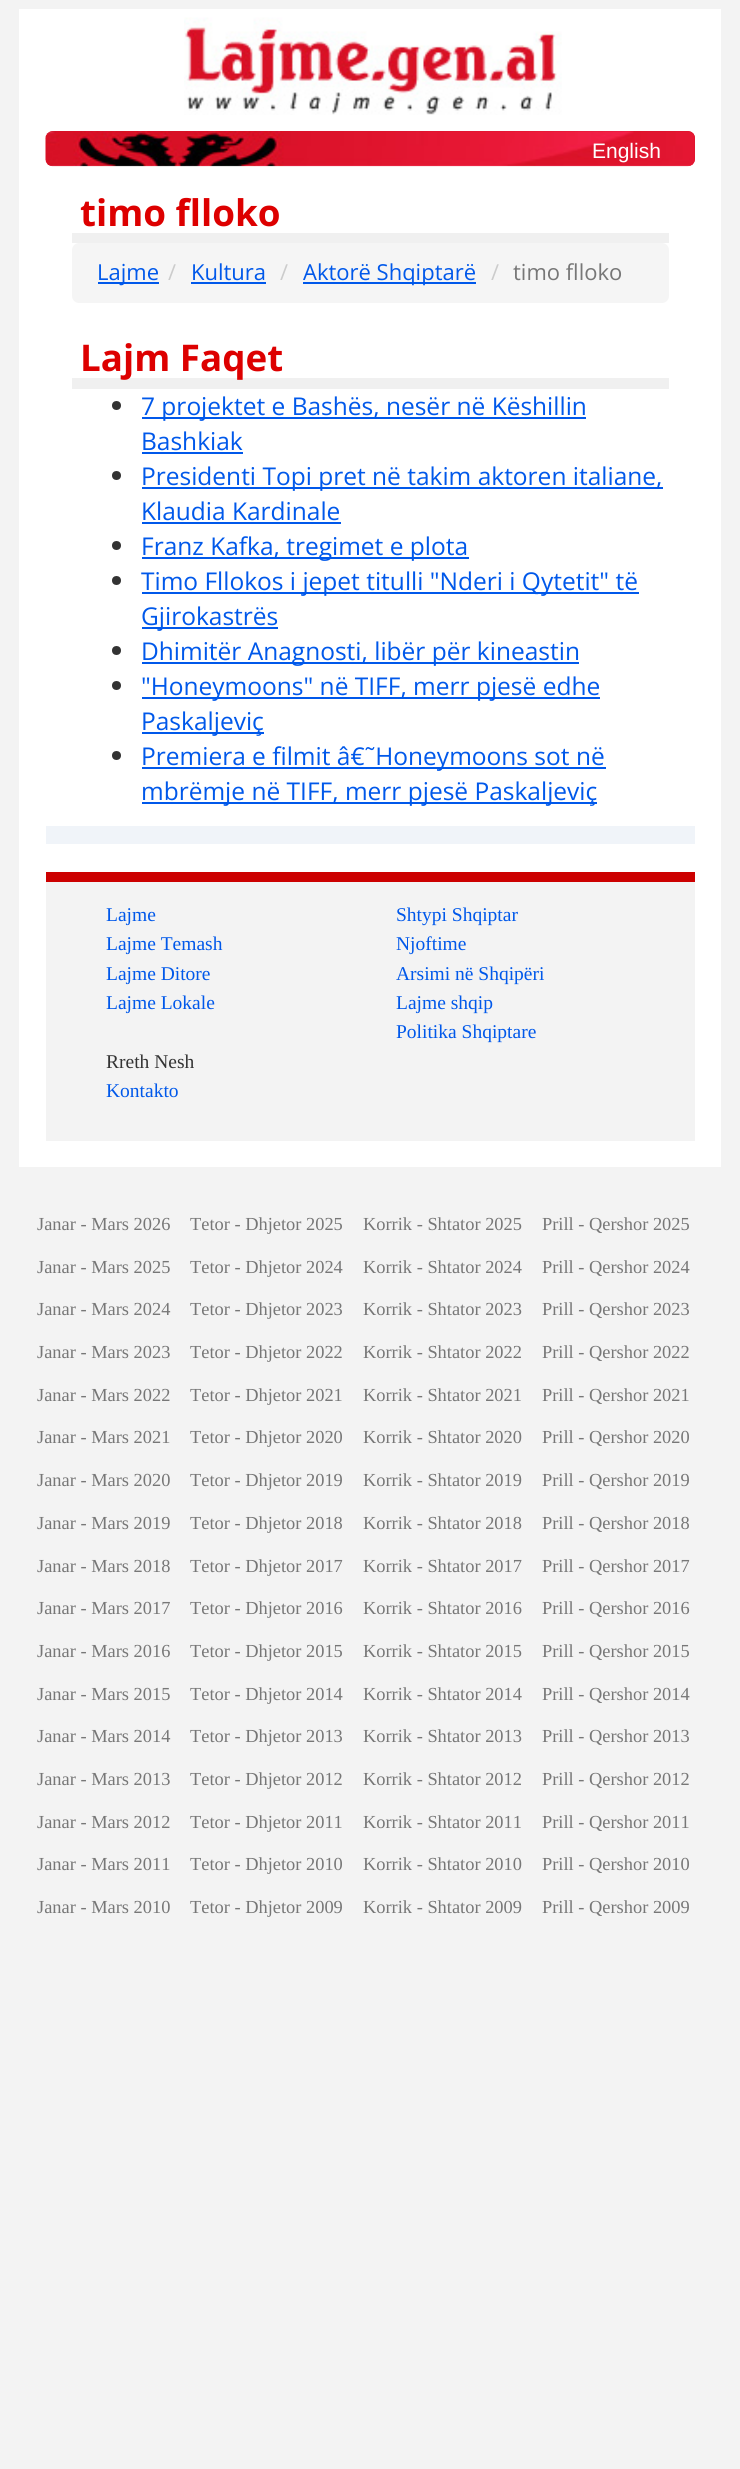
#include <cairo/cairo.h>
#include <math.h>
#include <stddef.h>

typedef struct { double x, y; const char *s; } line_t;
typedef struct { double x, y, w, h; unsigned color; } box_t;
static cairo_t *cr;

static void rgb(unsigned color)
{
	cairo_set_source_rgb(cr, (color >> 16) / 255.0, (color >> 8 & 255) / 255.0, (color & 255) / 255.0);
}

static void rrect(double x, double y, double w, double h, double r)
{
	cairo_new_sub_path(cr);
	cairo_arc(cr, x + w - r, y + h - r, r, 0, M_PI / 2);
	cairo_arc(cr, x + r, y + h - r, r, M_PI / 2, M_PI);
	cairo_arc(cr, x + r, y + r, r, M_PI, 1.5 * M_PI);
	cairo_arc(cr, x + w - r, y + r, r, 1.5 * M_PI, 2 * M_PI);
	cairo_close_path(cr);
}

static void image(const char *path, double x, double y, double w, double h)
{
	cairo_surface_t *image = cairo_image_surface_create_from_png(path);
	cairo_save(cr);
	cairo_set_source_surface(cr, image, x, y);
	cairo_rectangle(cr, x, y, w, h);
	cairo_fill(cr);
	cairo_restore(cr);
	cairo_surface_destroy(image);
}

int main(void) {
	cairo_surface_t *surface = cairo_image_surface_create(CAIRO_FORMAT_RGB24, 740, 2469);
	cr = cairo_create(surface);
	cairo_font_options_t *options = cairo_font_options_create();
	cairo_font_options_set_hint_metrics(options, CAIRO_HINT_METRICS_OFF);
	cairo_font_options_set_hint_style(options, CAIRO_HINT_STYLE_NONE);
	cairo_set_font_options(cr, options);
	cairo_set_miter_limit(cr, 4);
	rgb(0xf3f3f3);
	cairo_paint(cr);
	rgb(0xffffff);
	cairo_rectangle(cr, 19, 9, 702, 1158);
	cairo_fill(cr);
	image("img/1.png", 184, 17, 378, 98);
	rgb(0xd81126);
	rrect(46, 131, 649, 35, 7);
	cairo_fill(cr);
	image("img/2.png", 45, 131, 650, 36);
	rgb(0xf0f0f0);
	cairo_rectangle(cr, 72, 233, 597, 10);
	cairo_fill(cr);
	rgb(0xf5f5f5);
	rrect(72, 243, 597, 60, 7);
	cairo_fill(cr);
	{
		static const box_t items[] = {
			{98, 282, 61, 2, 0x0058ea},
			{191, 282, 75, 2, 0x0058ea},
			{303, 282, 173, 2, 0x0058ea},
			{72, 378, 597, 11, 0xf0f0f0},
		};
		for (size_t i = 0; i < sizeof items / sizeof *items; i++) {
			rgb(items[i].color);
			cairo_rectangle(cr, items[i].x, items[i].y, items[i].w, items[i].h);
			cairo_fill(cr);
		}
	}
	rgb(0x333333);
	cairo_arc(cr, 116.5, 405.5, 4.5, 0, 2 * M_PI);
	cairo_fill(cr);
	rgb(0x0058ea);
	cairo_rectangle(cr, 142, 417, 444, 2);
	cairo_fill(cr);
	cairo_rectangle(cr, 142, 452, 101, 2);
	cairo_fill(cr);
	rgb(0x333333);
	cairo_arc(cr, 116.5, 475.5, 4.5, 0, 2 * M_PI);
	cairo_fill(cr);
	rgb(0x0058ea);
	cairo_rectangle(cr, 142, 487, 521, 2);
	cairo_fill(cr);
	cairo_rectangle(cr, 142, 522, 199, 2);
	cairo_fill(cr);
	rgb(0x333333);
	cairo_arc(cr, 116.5, 545.5, 4.5, 0, 2 * M_PI);
	cairo_fill(cr);
	rgb(0x0058ea);
	cairo_rectangle(cr, 142, 557, 327, 2);
	cairo_fill(cr);
	rgb(0x333333);
	cairo_arc(cr, 116.5, 580.5, 4.5, 0, 2 * M_PI);
	cairo_fill(cr);
	rgb(0x0058ea);
	cairo_rectangle(cr, 142, 592, 497, 2);
	cairo_fill(cr);
	cairo_rectangle(cr, 142, 627, 136, 2);
	cairo_fill(cr);
	rgb(0x333333);
	cairo_arc(cr, 116.5, 650.5, 4.5, 0, 2 * M_PI);
	cairo_fill(cr);
	rgb(0x0058ea);
	cairo_rectangle(cr, 142, 662, 437, 2);
	cairo_fill(cr);
	rgb(0x333333);
	cairo_arc(cr, 116.5, 685.5, 4.5, 0, 2 * M_PI);
	cairo_fill(cr);
	rgb(0x0058ea);
	cairo_rectangle(cr, 142, 697, 458, 2);
	cairo_fill(cr);
	cairo_rectangle(cr, 142, 732, 122, 2);
	cairo_fill(cr);
	rgb(0x333333);
	cairo_arc(cr, 116.5, 755.5, 4.5, 0, 2 * M_PI);
	cairo_fill(cr);
	{
		static const box_t items[] = {
			{142, 767, 464, 2, 0x0058ea},
			{142, 802, 455, 2, 0x0058ea},
			{46, 826, 649, 18, 0xf0f4f9},
			{46, 882, 649, 259, 0xf3f3f3},
			{46, 872, 649, 10, 0xcc0000},
		};
		for (size_t i = 0; i < sizeof items / sizeof *items; i++) {
			rgb(items[i].color);
			cairo_rectangle(cr, items[i].x, items[i].y, items[i].w, items[i].h);
			cairo_fill(cr);
		}
	}
	cairo_select_font_face(cr, "Liberation Sans", CAIRO_FONT_SLANT_NORMAL, CAIRO_FONT_WEIGHT_NORMAL);
	cairo_set_font_size(cr, 21);
	rgb(0xffffff);
	cairo_move_to(cr, 592, 158);
	cairo_show_text(cr, "English");
	cairo_select_font_face(cr, "Open Sans", CAIRO_FONT_SLANT_NORMAL, CAIRO_FONT_WEIGHT_BOLD);
	cairo_set_font_size(cr, 36.75);
	rgb(0xdd0000);
	cairo_move_to(cr, 80, 226);
	cairo_show_text(cr, "timo flloko");
	cairo_select_font_face(cr, "Open Sans", CAIRO_FONT_SLANT_NORMAL, CAIRO_FONT_WEIGHT_NORMAL);
	cairo_set_font_size(cr, 22);
	rgb(0x0058ea);
	cairo_move_to(cr, 97, 280);
	cairo_show_text(cr, "Lajme");
	rgb(0xcccccc);
	cairo_move_to(cr, 168, 280);
	cairo_show_text(cr, "/");
	rgb(0x0058ea);
	cairo_move_to(cr, 191, 280);
	cairo_show_text(cr, "Kultura");
	rgb(0xcccccc);
	cairo_move_to(cr, 280, 280);
	cairo_show_text(cr, "/");
	rgb(0x0058ea);
	cairo_move_to(cr, 303, 280);
	cairo_show_text(cr, "Aktorë Shqiptarë");
	rgb(0xcccccc);
	cairo_move_to(cr, 491, 280);
	cairo_show_text(cr, "/");
	rgb(0x777777);
	cairo_move_to(cr, 513, 280);
	cairo_show_text(cr, "timo flloko");
	cairo_select_font_face(cr, "Open Sans", CAIRO_FONT_SLANT_NORMAL, CAIRO_FONT_WEIGHT_BOLD);
	cairo_set_font_size(cr, 36.75);
	rgb(0xdd0000);
	cairo_move_to(cr, 80, 371);
	cairo_show_text(cr, "Lajm Faqet");
	cairo_select_font_face(cr, "Open Sans", CAIRO_FONT_SLANT_NORMAL, CAIRO_FONT_WEIGHT_NORMAL);
	cairo_set_font_size(cr, 24.5);
	rgb(0x0058ea);
	{
		static const line_t items[] = {
			{141, 415, "7 projektet e Bashës, nesër në Këshillin"},
			{141, 450, "Bashkiak"},
			{141, 485, "Presidenti Topi pret në takim aktoren italiane,"},
			{141, 520, "Klaudia Kardinale"},
			{141, 555, "Franz Kafka, tregimet e plota"},
			{141, 590, "Timo Fllokos i jepet titulli \"Nderi i Qytetit\" të"},
			{141, 625, "Gjirokastrës"},
			{141, 660, "Dhimitër Anagnosti, libër për kineastin"},
			{141, 695, "\"Honeymoons\" në TIFF, merr pjesë edhe"},
			{141, 730, "Paskaljeviç"},
			{141, 765, "Premiera e filmit â€˜Honeymoons sot në"},
			{141, 800, "mbrëmje në TIFF, merr pjesë Paskaljeviç"},
		};
		for (size_t i = 0; i < sizeof items / sizeof *items; i++) {
			cairo_move_to(cr, items[i].x, items[i].y);
			cairo_show_text(cr, items[i].s);
		}
	}
	cairo_select_font_face(cr, "Liberation Serif", CAIRO_FONT_SLANT_NORMAL, CAIRO_FONT_WEIGHT_NORMAL);
	cairo_set_font_size(cr, 19.5);
	{
		static const line_t items[] = {
			{106, 921, "Lajme"},
			{106, 950, "Lajme Temash"},
			{106, 980, "Lajme Ditore"},
			{106, 1009, "Lajme Lokale"},
			{396, 921, "Shtypi Shqiptar"},
			{396, 950, "Njoftime"},
			{396, 980, "Arsimi në Shqipëri"},
			{396, 1009, "Lajme shqip"},
			{396, 1038, "Politika Shqiptare"},
		};
		for (size_t i = 0; i < sizeof items / sizeof *items; i++) {
			cairo_move_to(cr, items[i].x, items[i].y);
			cairo_show_text(cr, items[i].s);
		}
	}
	rgb(0x333333);
	cairo_move_to(cr, 106, 1068);
	cairo_show_text(cr, "Rreth Nesh");
	rgb(0x0058ea);
	cairo_move_to(cr, 106, 1097);
	cairo_show_text(cr, "Kontakto");
	cairo_set_font_size(cr, 18.4);
	rgb(0x777777);
	{
		static const line_t items[] = {
			{37, 1230, "Janar - Mars 2026"},
			{190, 1230, "Tetor - Dhjetor 2025"},
			{363, 1230, "Korrik - Shtator 2025"},
			{542, 1230, "Prill - Qershor 2025"},
			{37, 1273, "Janar - Mars 2025"},
			{190, 1273, "Tetor - Dhjetor 2024"},
			{363, 1273, "Korrik - Shtator 2024"},
			{542, 1273, "Prill - Qershor 2024"},
			{37, 1315, "Janar - Mars 2024"},
			{190, 1315, "Tetor - Dhjetor 2023"},
			{363, 1315, "Korrik - Shtator 2023"},
			{542, 1315, "Prill - Qershor 2023"},
			{37, 1358, "Janar - Mars 2023"},
			{190, 1358, "Tetor - Dhjetor 2022"},
			{363, 1358, "Korrik - Shtator 2022"},
			{542, 1358, "Prill - Qershor 2022"},
			{37, 1401, "Janar - Mars 2022"},
			{190, 1401, "Tetor - Dhjetor 2021"},
			{363, 1401, "Korrik - Shtator 2021"},
			{542, 1401, "Prill - Qershor 2021"},
			{37, 1443, "Janar - Mars 2021"},
			{190, 1443, "Tetor - Dhjetor 2020"},
			{363, 1443, "Korrik - Shtator 2020"},
			{542, 1443, "Prill - Qershor 2020"},
			{37, 1486, "Janar - Mars 2020"},
			{190, 1486, "Tetor - Dhjetor 2019"},
			{363, 1486, "Korrik - Shtator 2019"},
			{542, 1486, "Prill - Qershor 2019"},
			{37, 1529, "Janar - Mars 2019"},
			{190, 1529, "Tetor - Dhjetor 2018"},
			{363, 1529, "Korrik - Shtator 2018"},
			{542, 1529, "Prill - Qershor 2018"},
			{37, 1572, "Janar - Mars 2018"},
			{190, 1572, "Tetor - Dhjetor 2017"},
			{363, 1572, "Korrik - Shtator 2017"},
			{542, 1572, "Prill - Qershor 2017"},
			{37, 1614, "Janar - Mars 2017"},
			{190, 1614, "Tetor - Dhjetor 2016"},
			{363, 1614, "Korrik - Shtator 2016"},
			{542, 1614, "Prill - Qershor 2016"},
			{37, 1657, "Janar - Mars 2016"},
			{190, 1657, "Tetor - Dhjetor 2015"},
			{363, 1657, "Korrik - Shtator 2015"},
			{542, 1657, "Prill - Qershor 2015"},
			{37, 1700, "Janar - Mars 2015"},
			{190, 1700, "Tetor - Dhjetor 2014"},
			{363, 1700, "Korrik - Shtator 2014"},
			{542, 1700, "Prill - Qershor 2014"},
			{37, 1742, "Janar - Mars 2014"},
			{190, 1742, "Tetor - Dhjetor 2013"},
			{363, 1742, "Korrik - Shtator 2013"},
			{542, 1742, "Prill - Qershor 2013"},
			{37, 1785, "Janar - Mars 2013"},
			{190, 1785, "Tetor - Dhjetor 2012"},
			{363, 1785, "Korrik - Shtator 2012"},
			{542, 1785, "Prill - Qershor 2012"},
			{37, 1828, "Janar - Mars 2012"},
			{190, 1828, "Tetor - Dhjetor 2011"},
			{363, 1828, "Korrik - Shtator 2011"},
			{542, 1828, "Prill - Qershor 2011"},
			{37, 1870, "Janar - Mars 2011"},
			{190, 1870, "Tetor - Dhjetor 2010"},
			{363, 1870, "Korrik - Shtator 2010"},
			{542, 1870, "Prill - Qershor 2010"},
			{37, 1913, "Janar - Mars 2010"},
			{190, 1913, "Tetor - Dhjetor 2009"},
			{363, 1913, "Korrik - Shtator 2009"},
			{542, 1913, "Prill - Qershor 2009"},
		};
		for (size_t i = 0; i < sizeof items / sizeof *items; i++) {
			cairo_move_to(cr, items[i].x, items[i].y);
			cairo_show_text(cr, items[i].s);
		}
	}
	cairo_surface_write_to_png(surface, "page.png");
	cairo_font_options_destroy(options);
	cairo_destroy(cr);
	cairo_surface_destroy(surface);
	return 0;
}
